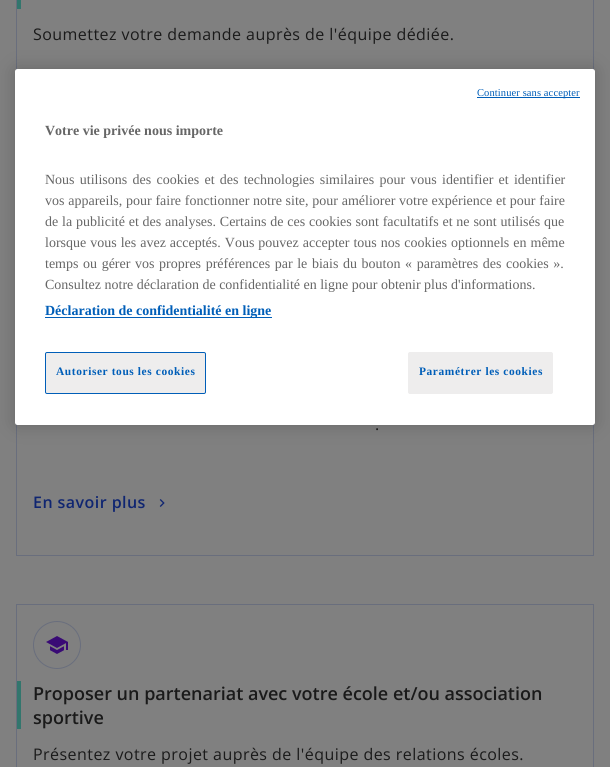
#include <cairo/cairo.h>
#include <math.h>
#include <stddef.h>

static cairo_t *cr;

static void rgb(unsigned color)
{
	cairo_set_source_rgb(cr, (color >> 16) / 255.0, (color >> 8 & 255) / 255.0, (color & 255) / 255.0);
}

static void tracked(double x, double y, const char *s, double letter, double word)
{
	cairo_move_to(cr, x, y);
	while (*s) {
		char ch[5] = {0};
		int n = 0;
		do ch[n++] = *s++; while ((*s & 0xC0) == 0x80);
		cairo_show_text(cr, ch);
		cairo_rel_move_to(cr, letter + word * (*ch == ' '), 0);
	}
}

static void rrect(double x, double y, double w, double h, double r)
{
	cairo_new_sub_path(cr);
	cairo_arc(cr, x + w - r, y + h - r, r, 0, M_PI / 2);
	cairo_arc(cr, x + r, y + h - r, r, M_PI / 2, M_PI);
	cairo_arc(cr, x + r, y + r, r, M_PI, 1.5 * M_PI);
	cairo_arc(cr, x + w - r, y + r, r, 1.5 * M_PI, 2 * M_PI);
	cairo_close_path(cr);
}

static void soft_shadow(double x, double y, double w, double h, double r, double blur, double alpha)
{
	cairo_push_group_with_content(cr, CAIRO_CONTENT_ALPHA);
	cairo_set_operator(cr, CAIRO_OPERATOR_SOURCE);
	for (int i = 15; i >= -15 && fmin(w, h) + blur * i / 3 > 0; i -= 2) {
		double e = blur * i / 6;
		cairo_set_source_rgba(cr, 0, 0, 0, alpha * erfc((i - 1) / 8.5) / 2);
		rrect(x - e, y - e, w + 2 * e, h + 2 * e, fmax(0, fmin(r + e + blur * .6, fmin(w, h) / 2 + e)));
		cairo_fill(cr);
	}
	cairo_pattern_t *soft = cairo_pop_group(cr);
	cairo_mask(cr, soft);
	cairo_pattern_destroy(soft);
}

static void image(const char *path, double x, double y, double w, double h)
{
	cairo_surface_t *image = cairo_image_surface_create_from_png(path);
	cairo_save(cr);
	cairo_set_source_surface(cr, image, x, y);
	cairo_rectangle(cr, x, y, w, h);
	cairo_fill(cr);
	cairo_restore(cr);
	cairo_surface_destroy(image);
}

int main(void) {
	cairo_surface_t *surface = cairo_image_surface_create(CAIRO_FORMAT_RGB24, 610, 767);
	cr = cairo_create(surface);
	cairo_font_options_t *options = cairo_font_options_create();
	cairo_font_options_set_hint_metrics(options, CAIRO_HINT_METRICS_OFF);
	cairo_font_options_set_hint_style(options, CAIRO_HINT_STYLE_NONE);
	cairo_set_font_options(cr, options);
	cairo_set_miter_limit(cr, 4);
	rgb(0x808080);
	cairo_paint(cr);
	cairo_rectangle(cr, 16.5, -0.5, 577, 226);
	rgb(0x696e7d);
	cairo_set_line_width(cr, 1);
	cairo_stroke(cr);
	rgb(0x32766d);
	cairo_rectangle(cr, 17, 0, 4, 9);
	cairo_fill(cr);
	cairo_rectangle(cr, 16.5, 274.5, 577, 281);
	rgb(0x696e7d);
	cairo_stroke(cr);
	image("img/1.png", 159, 499, 6, 8);
	cairo_rectangle(cr, 16.5, 604.5, 577, 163);
	cairo_stroke(cr);
	cairo_arc(cr, 57, 645, 23.5, 0, 2 * M_PI);
	cairo_stroke(cr);
	image("img/2.png", 46, 636, 22, 18);
	rgb(0x32766d);
	cairo_rectangle(cr, 17, 681, 4, 48);
	cairo_fill(cr);
	rgb(0x000000);
	soft_shadow(15, 69, 580, 356, 2.5, 9, 0.2);
	rgb(0xffffff);
	rrect(15, 69, 580, 356, 2.5);
	cairo_fill(cr);
	rgb(0x005eb8);
	cairo_rectangle(cr, 477, 97, 103, 1);
	cairo_fill(cr);
	cairo_rectangle(cr, 45, 317, 227, 1);
	cairo_fill(cr);
	rgb(0xeeeded);
	rrect(45.5, 352.5, 160, 41, 1.5);
	cairo_fill_preserve(cr);
	rgb(0x005eb8);
	cairo_stroke(cr);
	rgb(0xeeeded);
	rrect(408.5, 352.5, 144, 41, 1.5);
	cairo_fill_preserve(cr);
	cairo_stroke(cr);
	cairo_select_font_face(cr, "Open Sans", CAIRO_FONT_SLANT_NORMAL, CAIRO_FONT_WEIGHT_NORMAL);
	cairo_set_font_size(cr, 16);
	rgb(0x1a1a1a);
	tracked(33, 40, "Soumettez votre demande auprès de l'équipe dédiée.", 0.45, 0);
	tracked(375, 430, ".", 0.45, 0);
	cairo_select_font_face(cr, "Open Sans SemiBold", CAIRO_FONT_SLANT_NORMAL, CAIRO_FONT_WEIGHT_NORMAL);
	rgb(0x0f2571);
	tracked(33, 508, "En savoir plus", 0.45, 0);
	cairo_set_font_size(cr, 18);
	rgb(0x1a1a1a);
	cairo_move_to(cr, 33, 700);
	cairo_show_text(cr, "Proposer un partenariat avec votre école et/ou association");
	cairo_move_to(cr, 33, 724);
	cairo_show_text(cr, "sportive");
	cairo_select_font_face(cr, "Open Sans", CAIRO_FONT_SLANT_NORMAL, CAIRO_FONT_WEIGHT_NORMAL);
	cairo_set_font_size(cr, 16);
	tracked(33, 760, "Présentez votre projet auprès de l'équipe des relations écoles.", 0.45, 0);
	cairo_select_font_face(cr, "Liberation Serif", CAIRO_FONT_SLANT_NORMAL, CAIRO_FONT_WEIGHT_NORMAL);
	cairo_set_font_size(cr, 10.5);
	rgb(0x005eb8);
	tracked(477, 96, "Continuer sans accepter", 0.1, 0);
	cairo_select_font_face(cr, "Liberation Serif", CAIRO_FONT_SLANT_NORMAL, CAIRO_FONT_WEIGHT_BOLD);
	cairo_set_font_size(cr, 14);
	rgb(0x666666);
	cairo_move_to(cr, 45, 135);
	cairo_show_text(cr, "Votre vie privée nous importe");
	cairo_select_font_face(cr, "Liberation Serif", CAIRO_FONT_SLANT_NORMAL, CAIRO_FONT_WEIGHT_NORMAL);
	tracked(45, 184, "Nous utilisons des cookies et des technologies similaires pour vous identifier et identifier", 0, 1.75);
	tracked(45, 205, "vos appareils, pour faire fonctionner notre site, pour améliorer votre expérience et pour faire", 0, 0.25);
	tracked(45, 226, "de la publicité et des analyses. Certains de ces cookies sont facultatifs et ne sont utilisés que", 0, 0.3);
	tracked(45, 247, "lorsque vous les avez acceptés. Vous pouvez accepter tous nos cookies optionnels en même", 0, 0.5);
	tracked(45, 268, "temps ou gérer vos propres préférences par le biais du bouton « paramètres des cookies ».", 0, 1.1);
	cairo_move_to(cr, 45, 289);
	cairo_show_text(cr, "Consultez notre déclaration de confidentialité en ligne pour obtenir plus d'informations.");
	cairo_select_font_face(cr, "Liberation Serif", CAIRO_FONT_SLANT_NORMAL, CAIRO_FONT_WEIGHT_BOLD);
	rgb(0x005eb8);
	cairo_move_to(cr, 45, 315);
	cairo_show_text(cr, "Déclaration de confidentialité en ligne");
	cairo_set_font_size(cr, 11.4);
	tracked(56, 375, "Autoriser tous les cookies", 0.6, 0);
	tracked(419, 375, "Paramétrer les cookies", 0.6, 0);
	cairo_surface_write_to_png(surface, "page.png");
	cairo_font_options_destroy(options);
	cairo_destroy(cr);
	cairo_surface_destroy(surface);
	return 0;
}
